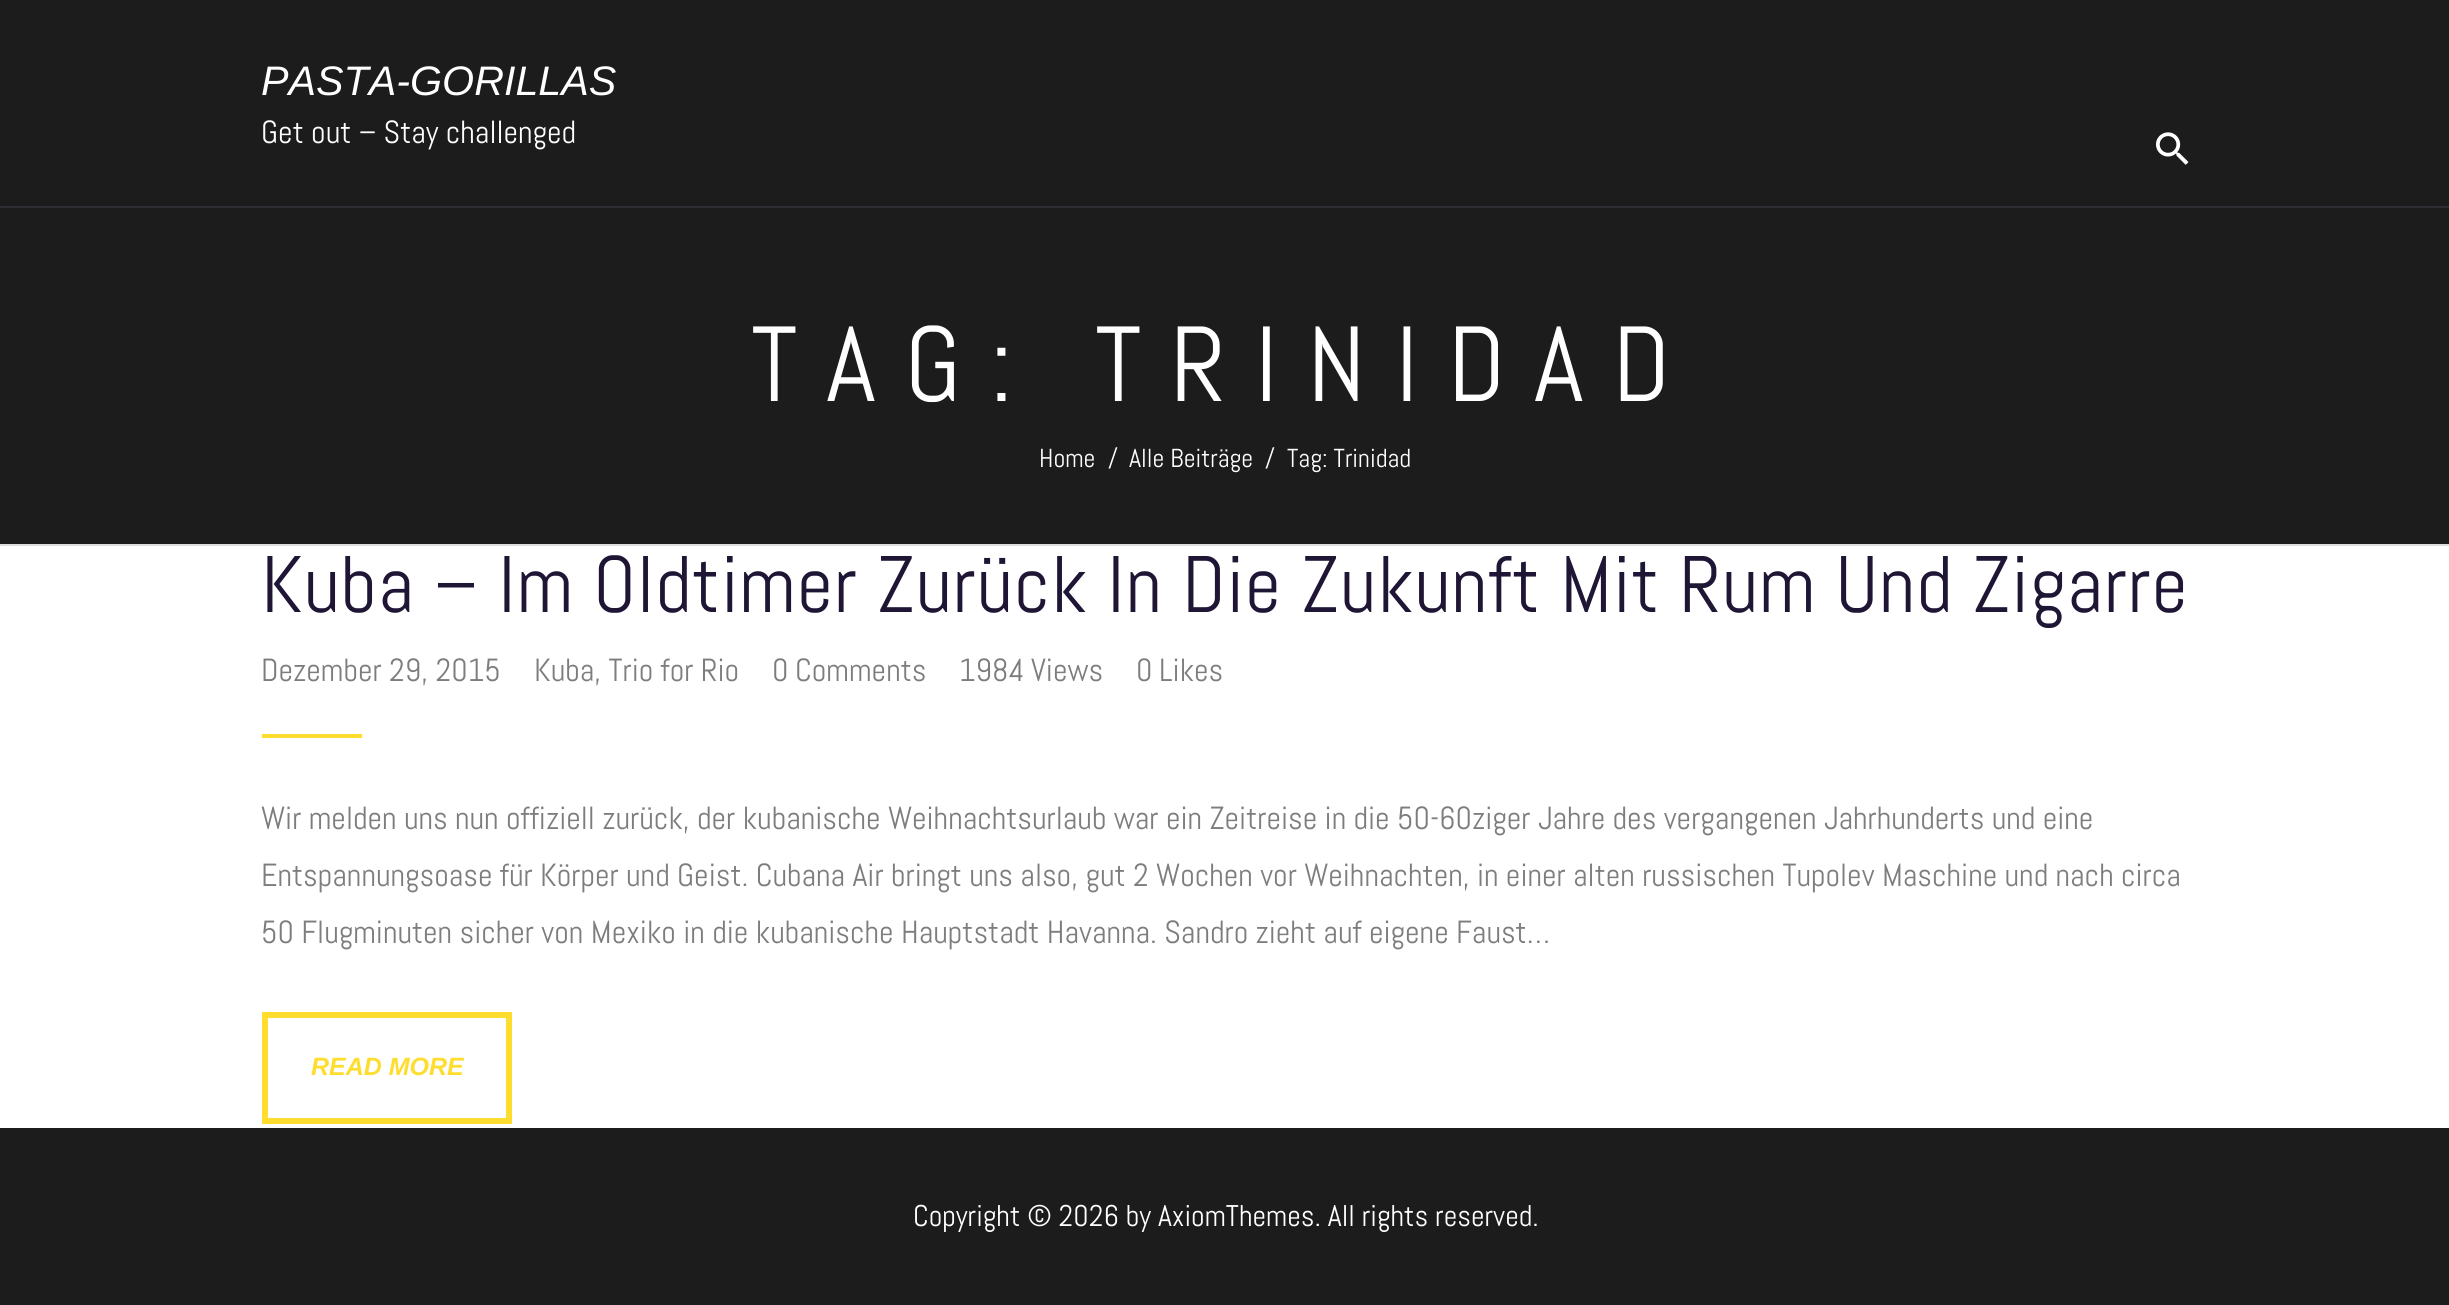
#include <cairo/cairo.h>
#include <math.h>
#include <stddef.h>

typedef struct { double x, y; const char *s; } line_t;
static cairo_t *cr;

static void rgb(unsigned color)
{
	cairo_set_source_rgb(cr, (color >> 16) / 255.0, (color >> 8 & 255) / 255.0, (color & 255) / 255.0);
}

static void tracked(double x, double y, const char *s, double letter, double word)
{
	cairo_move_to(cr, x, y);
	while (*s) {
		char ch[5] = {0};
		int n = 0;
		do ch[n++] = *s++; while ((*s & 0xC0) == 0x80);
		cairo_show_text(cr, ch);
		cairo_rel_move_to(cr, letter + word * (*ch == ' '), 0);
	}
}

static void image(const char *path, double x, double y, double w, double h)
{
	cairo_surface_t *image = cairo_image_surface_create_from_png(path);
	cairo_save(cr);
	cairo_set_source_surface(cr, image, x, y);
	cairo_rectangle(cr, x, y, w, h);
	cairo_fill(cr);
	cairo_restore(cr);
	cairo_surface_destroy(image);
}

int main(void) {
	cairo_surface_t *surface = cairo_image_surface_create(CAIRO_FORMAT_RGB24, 2449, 1305);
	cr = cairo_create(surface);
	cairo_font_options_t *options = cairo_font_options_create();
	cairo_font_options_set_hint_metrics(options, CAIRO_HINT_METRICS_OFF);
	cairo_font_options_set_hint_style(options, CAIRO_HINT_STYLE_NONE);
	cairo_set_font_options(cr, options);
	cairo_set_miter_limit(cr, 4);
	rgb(0xffffff);
	cairo_paint(cr);
	rgb(0x1c1c1c);
	cairo_rectangle(cr, 0, 0, 2449, 544);
	cairo_fill(cr);
	rgb(0x2e2d32);
	cairo_rectangle(cr, 0, 206, 2449, 2);
	cairo_fill(cr);
	image("img/1.png", 2156, 132, 33, 33);
	rgb(0xdddddd);
	cairo_rectangle(cr, 0, 544, 2449, 2);
	cairo_fill(cr);
	rgb(0xffdd2f);
	cairo_rectangle(cr, 262, 734, 100, 4);
	cairo_fill(cr);
	cairo_rectangle(cr, 265, 1015, 244, 106);
	cairo_set_line_width(cr, 6);
	cairo_stroke(cr);
	rgb(0x1c1c1c);
	cairo_rectangle(cr, 0, 1128, 2449, 177);
	cairo_fill(cr);
	cairo_select_font_face(cr, "Liberation Sans", CAIRO_FONT_SLANT_ITALIC, CAIRO_FONT_WEIGHT_NORMAL);
	cairo_set_font_size(cr, 41.25);
	rgb(0xffffff);
	cairo_move_to(cr, 261, 95);
	cairo_show_text(cr, "PASTA-GORILLAS");
	cairo_select_font_face(cr, "Abel", CAIRO_FONT_SLANT_NORMAL, CAIRO_FONT_WEIGHT_NORMAL);
	cairo_set_font_size(cr, 32);
	cairo_move_to(cr, 261, 143);
	cairo_show_text(cr, "Get out – Stay challenged");
	cairo_set_font_size(cr, 106.5);
	tracked(751, 401, "TAG: TRINIDAD", 28.75, 0);
	cairo_set_font_size(cr, 26);
	{
		static const line_t items[] = {
			{1039, 467, "Home"},
			{1108, 467, "/"},
			{1129, 467, "Alle Beiträge"},
			{1265, 467, "/"},
			{1287, 467, "Tag: Trinidad"},
		};
		for (size_t i = 0; i < sizeof items / sizeof *items; i++) {
			cairo_move_to(cr, items[i].x, items[i].y);
			cairo_show_text(cr, items[i].s);
		}
	}
	cairo_set_font_size(cr, 80);
	rgb(0x1f1635);
	tracked(261, 612, "Kuba – Im Oldtimer Zurück In Die Zukunft Mit Rum Und Zigarre", 0.8, 0);
	cairo_set_font_size(cr, 32);
	rgb(0x7d7d7d);
	{
		static const line_t items[] = {
			{261, 681, "Dezember 29, 2015"},
			{534, 681, "Kuba, Trio for Rio"},
			{772, 681, "0"},
			{795, 681, "Comments"},
			{959, 681, "1984"},
			{1031, 681, "Views"},
			{1136, 681, "0"},
			{1159, 681, "Likes"},
			{261, 829, "Wir melden uns nun offiziell zurück, der kubanische Weihnachtsurlaub war ein Zeitreise in die 50-60ziger Jahre des vergangenen Jahrhunderts und eine"},
			{261, 886, "Entspannungsoase für Körper und Geist. Cubana Air bringt uns also, gut 2 Wochen vor Weihnachten, in einer alten russischen Tupolev Maschine und nach circa"},
			{261, 943, "50 Flugminuten sicher von Mexiko in die kubanische Hauptstadt Havanna. Sandro zieht auf eigene Faust…"},
		};
		for (size_t i = 0; i < sizeof items / sizeof *items; i++) {
			cairo_move_to(cr, items[i].x, items[i].y);
			cairo_show_text(cr, items[i].s);
		}
	}
	cairo_select_font_face(cr, "Liberation Sans", CAIRO_FONT_SLANT_ITALIC, CAIRO_FONT_WEIGHT_BOLD);
	cairo_set_font_size(cr, 25);
	rgb(0xffdd2f);
	cairo_move_to(cr, 311, 1075);
	cairo_show_text(cr, "READ MORE");
	cairo_select_font_face(cr, "Abel", CAIRO_FONT_SLANT_NORMAL, CAIRO_FONT_WEIGHT_NORMAL);
	cairo_set_font_size(cr, 29.9);
	rgb(0xffffff);
	cairo_move_to(cr, 913, 1226);
	cairo_show_text(cr, "Copyright © 2026 by AxiomThemes. All rights reserved.");
	cairo_surface_write_to_png(surface, "page.png");
	cairo_font_options_destroy(options);
	cairo_destroy(cr);
	cairo_surface_destroy(surface);
	return 0;
}
